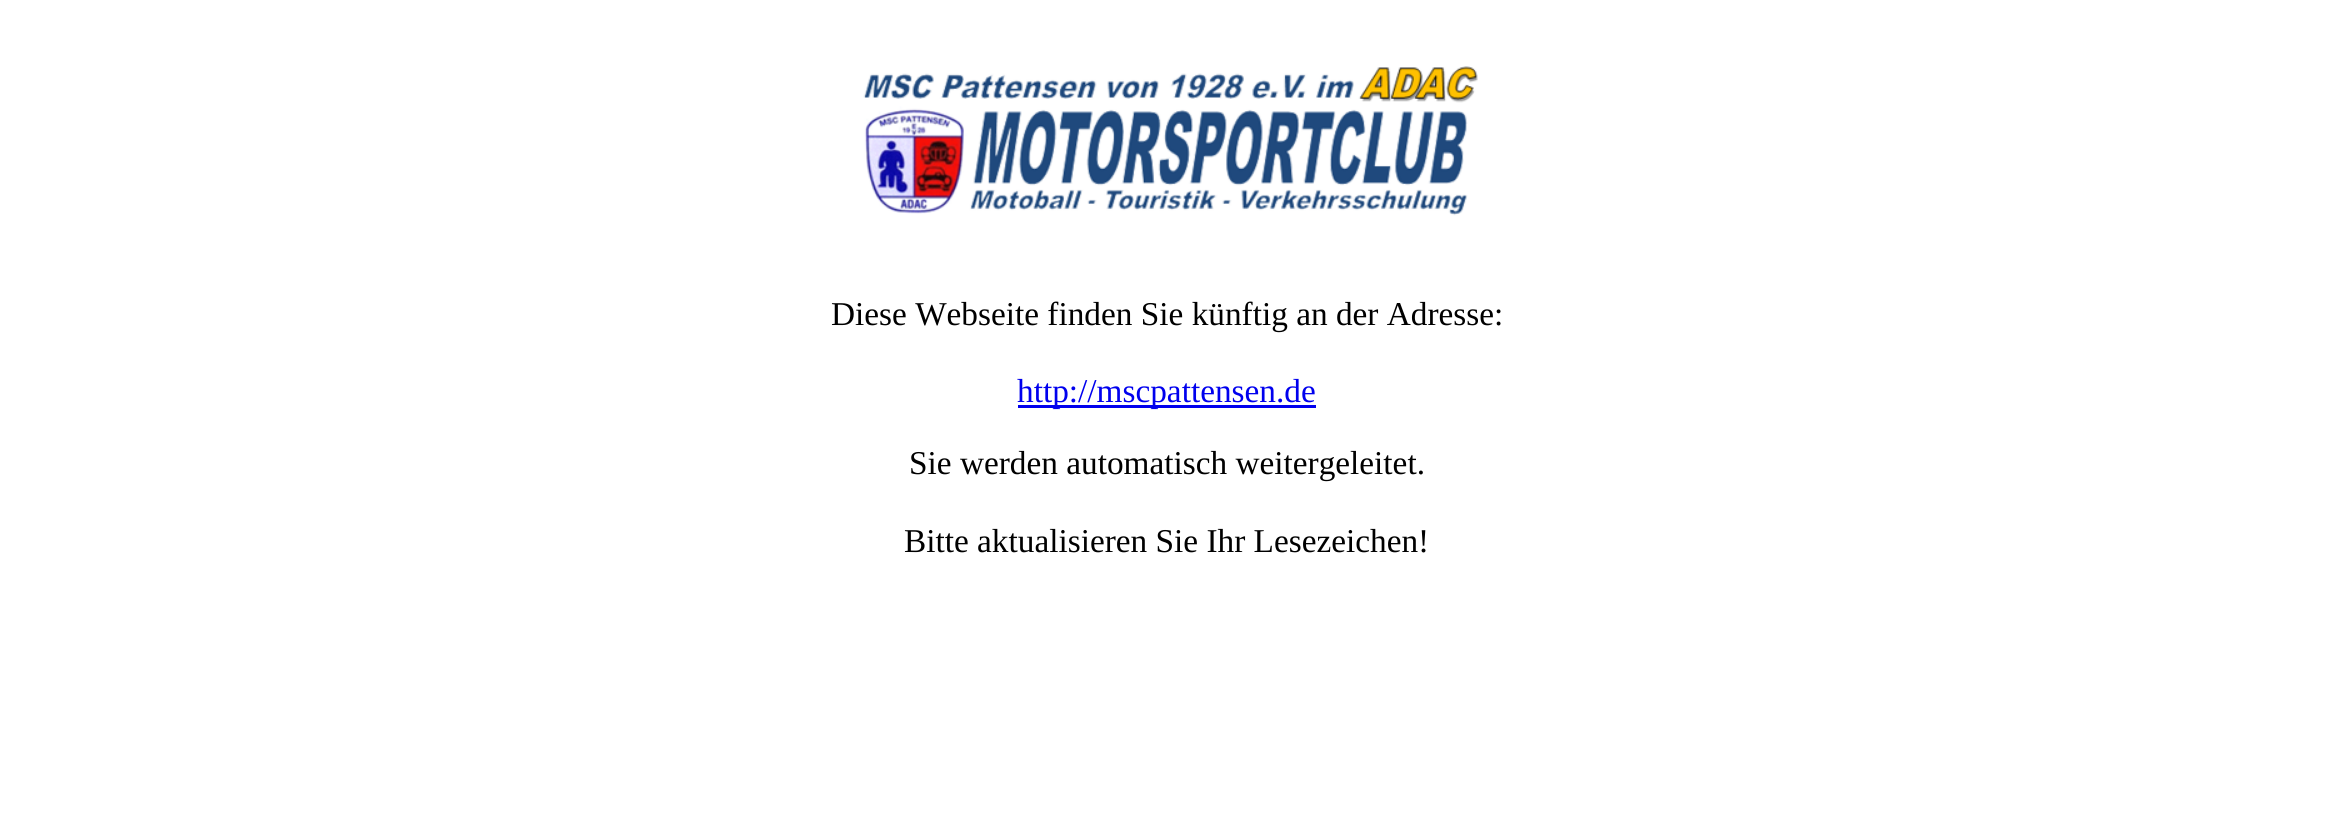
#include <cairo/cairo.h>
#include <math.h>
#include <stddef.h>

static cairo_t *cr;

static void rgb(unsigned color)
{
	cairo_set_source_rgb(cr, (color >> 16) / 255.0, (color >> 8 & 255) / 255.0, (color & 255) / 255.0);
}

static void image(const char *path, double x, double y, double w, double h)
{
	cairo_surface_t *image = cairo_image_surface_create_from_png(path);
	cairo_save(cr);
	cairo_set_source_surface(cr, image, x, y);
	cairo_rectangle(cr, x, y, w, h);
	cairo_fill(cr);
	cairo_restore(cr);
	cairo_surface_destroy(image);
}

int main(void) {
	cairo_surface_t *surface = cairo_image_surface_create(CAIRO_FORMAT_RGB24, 2333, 818);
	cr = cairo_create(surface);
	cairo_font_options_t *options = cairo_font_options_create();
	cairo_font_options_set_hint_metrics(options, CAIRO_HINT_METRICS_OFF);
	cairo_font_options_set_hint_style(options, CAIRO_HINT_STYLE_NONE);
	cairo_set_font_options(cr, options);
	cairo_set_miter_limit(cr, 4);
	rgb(0xffffff);
	cairo_paint(cr);
	image("img/1.png", 863, 66, 615, 150);
	rgb(0x0000ee);
	cairo_rectangle(cr, 1018, 405, 298, 3);
	cairo_fill(cr);
	cairo_select_font_face(cr, "Liberation Serif", CAIRO_FONT_SLANT_NORMAL, CAIRO_FONT_WEIGHT_NORMAL);
	cairo_set_font_size(cr, 33.3);
	rgb(0x000000);
	cairo_move_to(cr, 831, 325);
	cairo_show_text(cr, "Diese Webseite finden Sie künftig an der Adresse:");
	rgb(0x0000ee);
	cairo_move_to(cr, 1017, 402);
	cairo_show_text(cr, "http://mscpattensen.de");
	rgb(0x000000);
	cairo_move_to(cr, 909, 474);
	cairo_show_text(cr, "Sie werden automatisch weitergeleitet.");
	cairo_move_to(cr, 904, 552);
	cairo_show_text(cr, "Bitte aktualisieren Sie Ihr Lesezeichen!");
	cairo_surface_write_to_png(surface, "page.png");
	cairo_font_options_destroy(options);
	cairo_destroy(cr);
	cairo_surface_destroy(surface);
	return 0;
}
